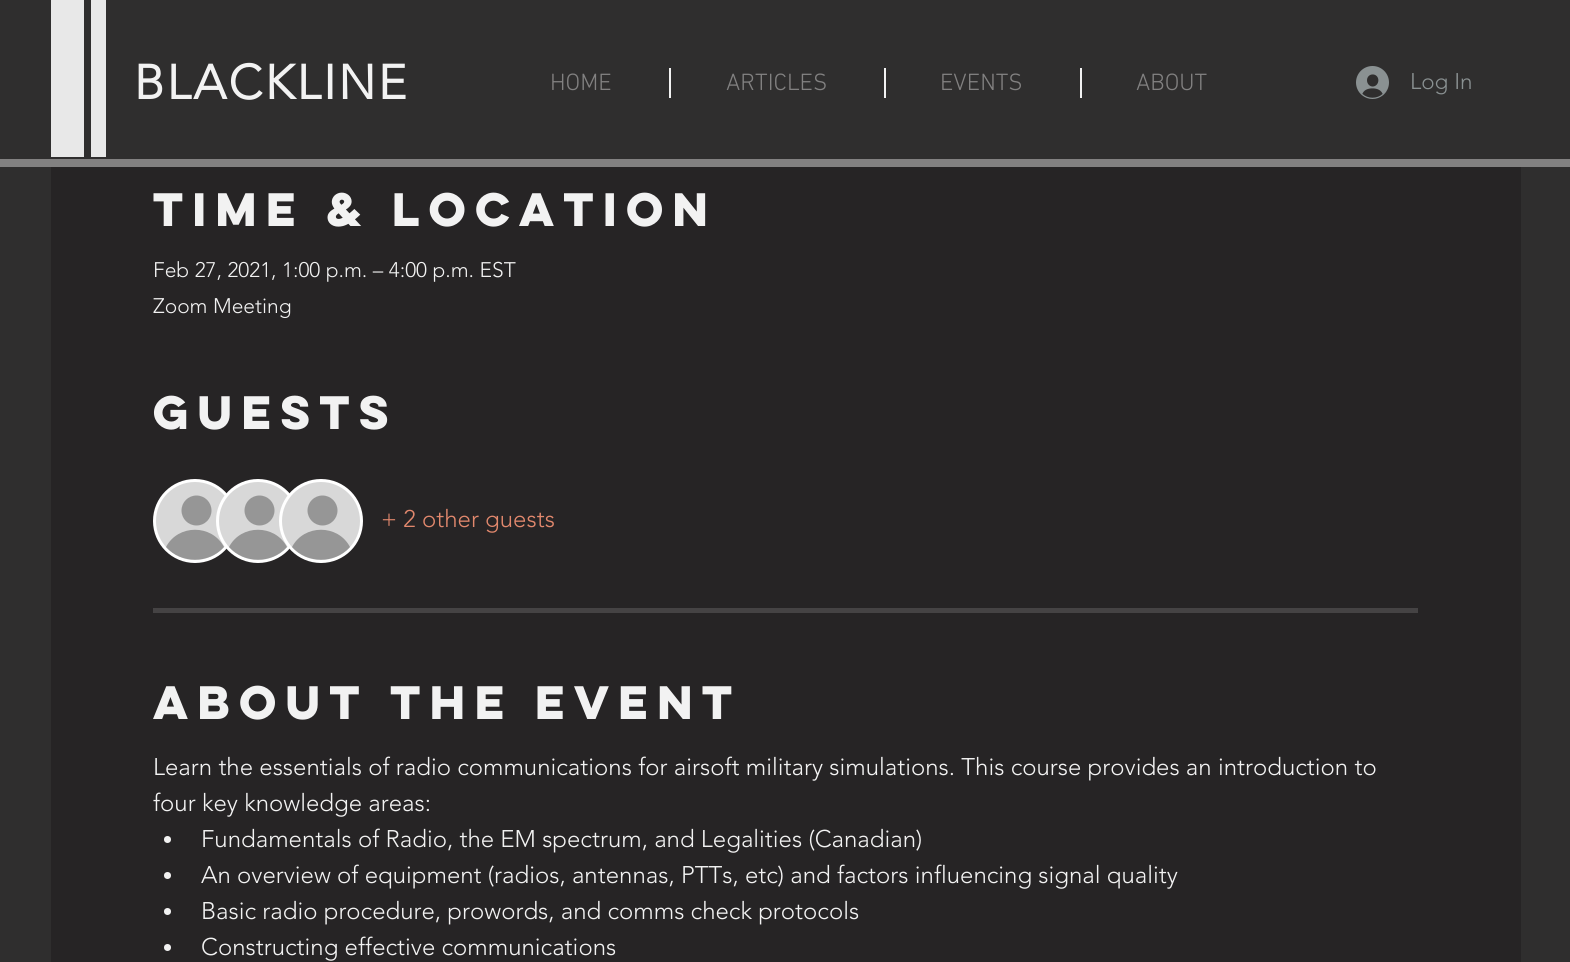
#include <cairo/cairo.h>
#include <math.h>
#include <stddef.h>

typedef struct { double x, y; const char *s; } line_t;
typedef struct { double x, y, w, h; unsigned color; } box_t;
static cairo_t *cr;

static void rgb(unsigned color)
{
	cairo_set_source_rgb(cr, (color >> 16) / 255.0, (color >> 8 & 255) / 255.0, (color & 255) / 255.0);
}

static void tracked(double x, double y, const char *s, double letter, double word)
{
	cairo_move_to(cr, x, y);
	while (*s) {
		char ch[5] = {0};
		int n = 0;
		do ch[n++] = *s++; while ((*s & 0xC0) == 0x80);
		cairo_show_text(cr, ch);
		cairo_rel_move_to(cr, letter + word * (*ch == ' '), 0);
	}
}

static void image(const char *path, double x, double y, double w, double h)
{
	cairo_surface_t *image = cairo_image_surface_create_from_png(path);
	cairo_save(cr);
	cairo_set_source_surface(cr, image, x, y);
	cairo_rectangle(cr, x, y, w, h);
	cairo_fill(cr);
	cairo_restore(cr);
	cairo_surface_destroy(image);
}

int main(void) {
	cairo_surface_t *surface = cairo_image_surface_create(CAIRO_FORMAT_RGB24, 1570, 962);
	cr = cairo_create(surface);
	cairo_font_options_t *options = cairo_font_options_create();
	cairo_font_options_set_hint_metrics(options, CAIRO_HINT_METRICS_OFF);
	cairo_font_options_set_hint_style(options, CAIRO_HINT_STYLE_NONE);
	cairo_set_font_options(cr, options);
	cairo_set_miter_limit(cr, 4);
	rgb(0x2f2e2e);
	cairo_paint(cr);
	{
		static const box_t items[] = {
			{51, 0, 33, 157, 0xe8e8e8},
			{91, 0, 15, 157, 0xe8e8e8},
			{669, 68, 2, 30, 0xf2f2f2},
			{884, 68, 2, 30, 0xf2f2f2},
			{1080, 68, 2, 30, 0xf2f2f2},
		};
		for (size_t i = 0; i < sizeof items / sizeof *items; i++) {
			rgb(items[i].color);
			cairo_rectangle(cr, items[i].x, items[i].y, items[i].w, items[i].h);
			cairo_fill(cr);
		}
	}
	image("img/1.png", 1356, 66, 33, 33);
	rgb(0x828181);
	cairo_rectangle(cr, 0, 159, 1570, 8);
	cairo_fill(cr);
	rgb(0x262425);
	cairo_rectangle(cr, 51, 167, 1470, 795);
	cairo_fill(cr);
	rgb(0xd8d8d8);
	cairo_arc(cr, 195, 521, 40.5, 0, 2 * M_PI);
	cairo_fill_preserve(cr);
	rgb(0xffffff);
	cairo_set_line_width(cr, 3);
	cairo_stroke(cr);
	rgb(0x969696);
	cairo_arc(cr, 196.5, 510.5, 15, 0, 2 * M_PI);
	cairo_fill(cr);
	cairo_new_path(cr);
	cairo_move_to(cr, 224, 547);
	cairo_curve_to(cr, 209, 564, 181, 564, 166, 547);
	cairo_curve_to(cr, 178, 524, 212, 524, 224, 547);
	cairo_close_path(cr);
	cairo_fill(cr);
	rgb(0xd8d8d8);
	cairo_arc(cr, 258, 521, 40.5, 0, 2 * M_PI);
	cairo_fill_preserve(cr);
	rgb(0xffffff);
	cairo_stroke(cr);
	rgb(0x969696);
	cairo_arc(cr, 259.5, 510.5, 15, 0, 2 * M_PI);
	cairo_fill(cr);
	cairo_new_path(cr);
	cairo_move_to(cr, 287, 547);
	cairo_curve_to(cr, 272, 564, 244, 564, 229, 547);
	cairo_curve_to(cr, 241, 524, 275, 524, 287, 547);
	cairo_close_path(cr);
	cairo_fill(cr);
	rgb(0xd8d8d8);
	cairo_arc(cr, 321, 521, 40.5, 0, 2 * M_PI);
	cairo_fill_preserve(cr);
	rgb(0xffffff);
	cairo_stroke(cr);
	rgb(0x969696);
	cairo_arc(cr, 322.5, 510.5, 15, 0, 2 * M_PI);
	cairo_fill(cr);
	cairo_new_path(cr);
	cairo_move_to(cr, 350, 547);
	cairo_curve_to(cr, 335, 564, 307, 564, 292, 547);
	cairo_curve_to(cr, 304, 524, 338, 524, 350, 547);
	cairo_close_path(cr);
	cairo_fill(cr);
	rgb(0x454344);
	cairo_rectangle(cr, 153, 608, 1265, 5);
	cairo_fill(cr);
	rgb(0xf2f2f2);
	cairo_arc(cr, 167.5, 839.5, 3.5, 0, 2 * M_PI);
	cairo_fill(cr);
	cairo_arc(cr, 167.5, 875.5, 3.5, 0, 2 * M_PI);
	cairo_fill(cr);
	cairo_arc(cr, 167.5, 911.5, 3.5, 0, 2 * M_PI);
	cairo_fill(cr);
	cairo_arc(cr, 167.5, 947.5, 3.5, 0, 2 * M_PI);
	cairo_fill(cr);
	cairo_select_font_face(cr, "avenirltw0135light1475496", CAIRO_FONT_SLANT_NORMAL, CAIRO_FONT_WEIGHT_BOLD);
	cairo_set_font_size(cr, 48);
	tracked(134, 99, "BLACKLINE", 2.5, 0);
	cairo_select_font_face(cr, "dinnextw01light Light", CAIRO_FONT_SLANT_NORMAL, CAIRO_FONT_WEIGHT_NORMAL);
	cairo_set_font_size(cr, 24);
	rgb(0x828181);
	{
		static const line_t items[] = {
			{550, 90, "HOME"},
			{726, 90, "ARTICLES"},
			{940, 90, "EVENTS"},
			{1136, 90, "ABOUT"},
		};
		for (size_t i = 0; i < sizeof items / sizeof *items; i++) {
			cairo_move_to(cr, items[i].x, items[i].y);
			cairo_show_text(cr, items[i].s);
		}
	}
	cairo_select_font_face(cr, "avenirltw0135light1475496 Light", CAIRO_FONT_SLANT_NORMAL, CAIRO_FONT_WEIGHT_NORMAL);
	cairo_set_font_size(cr, 22.5);
	rgb(0x8a9192);
	cairo_move_to(cr, 1410, 89);
	cairo_show_text(cr, "Log In");
	cairo_select_font_face(cr, "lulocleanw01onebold", CAIRO_FONT_SLANT_NORMAL, CAIRO_FONT_WEIGHT_BOLD);
	cairo_set_font_size(cr, 42);
	rgb(0xf2f2f2);
	cairo_move_to(cr, 153, 226);
	cairo_show_text(cr, "Time & Location");
	cairo_select_font_face(cr, "avenirltw0135light1475496 Light", CAIRO_FONT_SLANT_NORMAL, CAIRO_FONT_WEIGHT_NORMAL);
	cairo_set_font_size(cr, 21);
	cairo_move_to(cr, 153, 277);
	cairo_show_text(cr, "Feb 27, 2021, 1:00 p.m. – 4:00 p.m. EST");
	cairo_move_to(cr, 153, 313);
	cairo_show_text(cr, "Zoom Meeting");
	cairo_select_font_face(cr, "lulocleanw01onebold", CAIRO_FONT_SLANT_NORMAL, CAIRO_FONT_WEIGHT_BOLD);
	cairo_set_font_size(cr, 42);
	cairo_move_to(cr, 153, 429);
	cairo_show_text(cr, "Guests");
	cairo_select_font_face(cr, "avenirltw0135light1475496 Light", CAIRO_FONT_SLANT_NORMAL, CAIRO_FONT_WEIGHT_NORMAL);
	cairo_set_font_size(cr, 24);
	rgb(0xe2886d);
	cairo_move_to(cr, 381, 527);
	cairo_show_text(cr, "+ 2 other guests");
	cairo_select_font_face(cr, "lulocleanw01onebold", CAIRO_FONT_SLANT_NORMAL, CAIRO_FONT_WEIGHT_BOLD);
	cairo_set_font_size(cr, 42);
	rgb(0xf2f2f2);
	cairo_move_to(cr, 153, 719);
	cairo_show_text(cr, "About the event");
	cairo_select_font_face(cr, "avenirltw0135light1475496 Light", CAIRO_FONT_SLANT_NORMAL, CAIRO_FONT_WEIGHT_NORMAL);
	cairo_set_font_size(cr, 24);
	{
		static const line_t items[] = {
			{153, 775, "Learn the essentials of radio communications for airsoft military simulations. This course provides an introduction to"},
			{153, 811, "four key knowledge areas:"},
			{201, 847, "Fundamentals of Radio, the EM spectrum, and Legalities (Canadian)"},
			{201, 883, "An overview of equipment (radios, antennas, PTTs, etc) and factors influencing signal quality"},
			{201, 919, "Basic radio procedure, prowords, and comms check protocols"},
			{201, 955, "Constructing effective communications"},
		};
		for (size_t i = 0; i < sizeof items / sizeof *items; i++) {
			cairo_move_to(cr, items[i].x, items[i].y);
			cairo_show_text(cr, items[i].s);
		}
	}
	cairo_surface_write_to_png(surface, "page.png");
	cairo_font_options_destroy(options);
	cairo_destroy(cr);
	cairo_surface_destroy(surface);
	return 0;
}
